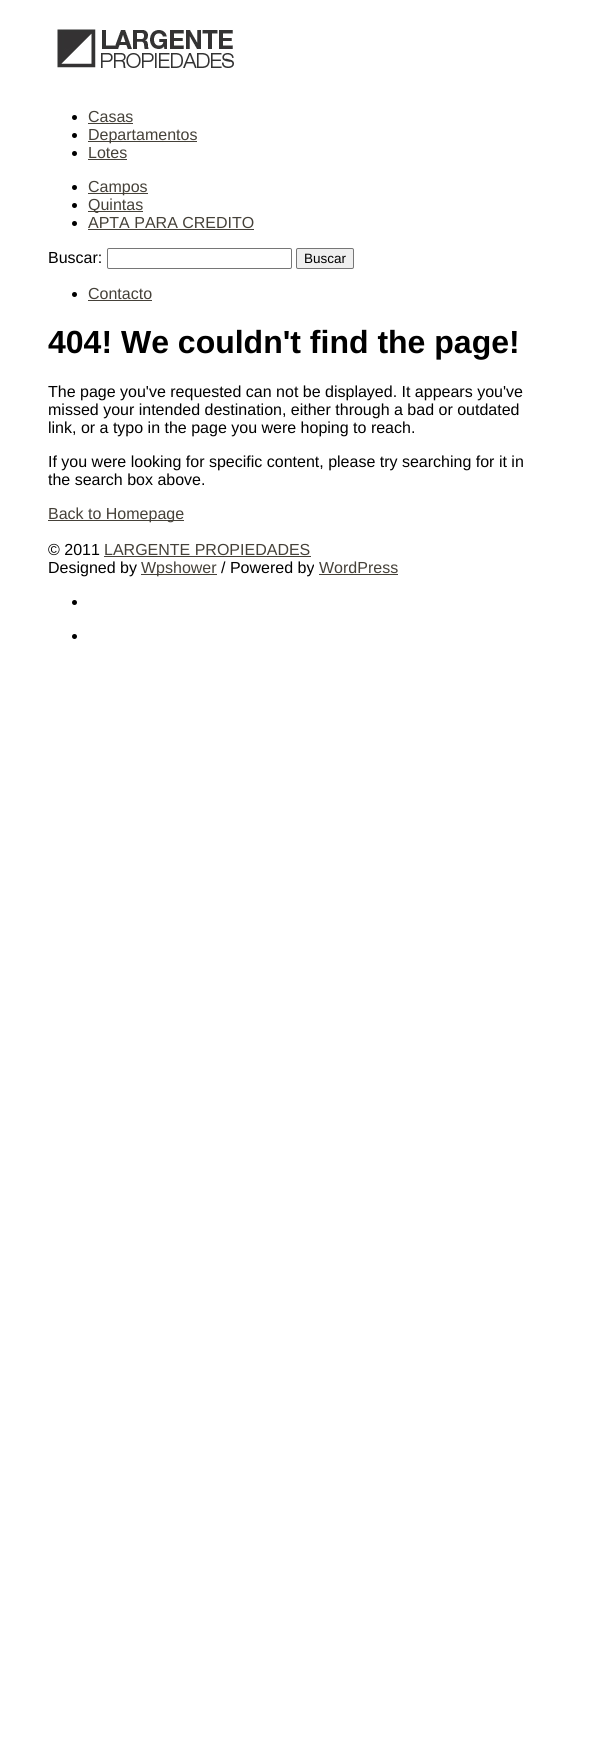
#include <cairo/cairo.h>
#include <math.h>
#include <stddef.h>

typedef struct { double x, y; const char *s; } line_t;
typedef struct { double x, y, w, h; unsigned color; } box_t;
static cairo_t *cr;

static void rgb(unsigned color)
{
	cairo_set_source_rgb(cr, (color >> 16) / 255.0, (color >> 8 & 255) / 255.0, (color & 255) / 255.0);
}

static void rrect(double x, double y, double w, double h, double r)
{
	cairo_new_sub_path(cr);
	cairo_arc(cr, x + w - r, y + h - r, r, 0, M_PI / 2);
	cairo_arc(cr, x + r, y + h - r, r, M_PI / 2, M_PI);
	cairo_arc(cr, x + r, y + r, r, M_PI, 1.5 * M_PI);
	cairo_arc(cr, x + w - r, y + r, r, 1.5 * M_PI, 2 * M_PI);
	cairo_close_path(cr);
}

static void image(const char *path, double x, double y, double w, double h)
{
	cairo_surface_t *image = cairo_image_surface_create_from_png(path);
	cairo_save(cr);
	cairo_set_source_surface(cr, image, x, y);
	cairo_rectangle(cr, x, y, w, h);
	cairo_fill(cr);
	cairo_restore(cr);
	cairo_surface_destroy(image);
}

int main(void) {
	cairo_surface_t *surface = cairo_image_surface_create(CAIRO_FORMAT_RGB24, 595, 1756);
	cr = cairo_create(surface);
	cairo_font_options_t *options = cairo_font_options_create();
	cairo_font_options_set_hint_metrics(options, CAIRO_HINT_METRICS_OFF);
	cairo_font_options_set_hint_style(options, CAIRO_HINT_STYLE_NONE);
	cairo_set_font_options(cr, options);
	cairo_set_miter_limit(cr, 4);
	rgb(0xffffff);
	cairo_paint(cr);
	image("img/1.png", 57, 29, 177, 39);
	rgb(0x000000);
	cairo_arc(cr, 74.5, 117.5, 2.5, 0, 2 * M_PI);
	cairo_fill(cr);
	rgb(0x454139);
	cairo_rectangle(cr, 88, 123, 45, 1);
	cairo_fill(cr);
	rgb(0x000000);
	cairo_arc(cr, 74.5, 135.5, 2.5, 0, 2 * M_PI);
	cairo_fill(cr);
	rgb(0x454139);
	cairo_rectangle(cr, 88, 141, 109, 1);
	cairo_fill(cr);
	rgb(0x000000);
	cairo_arc(cr, 74.5, 153.5, 2.5, 0, 2 * M_PI);
	cairo_fill(cr);
	rgb(0x454139);
	cairo_rectangle(cr, 88, 159, 39, 1);
	cairo_fill(cr);
	rgb(0x000000);
	cairo_arc(cr, 74.5, 187.5, 2.5, 0, 2 * M_PI);
	cairo_fill(cr);
	rgb(0x454139);
	cairo_rectangle(cr, 88, 193, 60, 1);
	cairo_fill(cr);
	rgb(0x000000);
	cairo_arc(cr, 74.5, 205.5, 2.5, 0, 2 * M_PI);
	cairo_fill(cr);
	rgb(0x454139);
	cairo_rectangle(cr, 88, 211, 55, 1);
	cairo_fill(cr);
	rgb(0x000000);
	cairo_arc(cr, 74.5, 223.5, 2.5, 0, 2 * M_PI);
	cairo_fill(cr);
	rgb(0x454139);
	cairo_rectangle(cr, 88, 229, 166, 1);
	cairo_fill(cr);
	rrect(107.5, 248.5, 184, 20, 1.5);
	rgb(0x767676);
	cairo_set_line_width(cr, 1);
	cairo_stroke(cr);
	rgb(0xefefef);
	rrect(296.5, 248.5, 57, 20, 1.5);
	cairo_fill_preserve(cr);
	rgb(0x767676);
	cairo_stroke(cr);
	rgb(0x000000);
	cairo_arc(cr, 74.5, 294.5, 2.5, 0, 2 * M_PI);
	cairo_fill(cr);
	{
		static const box_t items[] = {
			{88, 300, 64, 1, 0x454139},
			{48, 520, 136, 1, 0x454139},
			{104, 556, 207, 1, 0x454139},
			{141, 574, 76, 1, 0x454139},
			{319, 574, 79, 1, 0x454139},
		};
		for (size_t i = 0; i < sizeof items / sizeof *items; i++) {
			rgb(items[i].color);
			cairo_rectangle(cr, items[i].x, items[i].y, items[i].w, items[i].h);
			cairo_fill(cr);
		}
	}
	rgb(0x000000);
	cairo_arc(cr, 74.5, 602.5, 2.5, 0, 2 * M_PI);
	cairo_fill(cr);
	cairo_arc(cr, 74.5, 636.5, 2.5, 0, 2 * M_PI);
	cairo_fill(cr);
	cairo_select_font_face(cr, "Liberation Sans", CAIRO_FONT_SLANT_NORMAL, CAIRO_FONT_WEIGHT_NORMAL);
	cairo_set_font_size(cr, 16);
	rgb(0x454139);
	{
		static const line_t items[] = {
			{88, 122, "Casas"},
			{88, 140, "Departamentos"},
			{88, 158, "Lotes"},
			{88, 192, "Campos"},
			{88, 210, "Quintas"},
			{88, 228, "APTA PARA CREDITO"},
		};
		for (size_t i = 0; i < sizeof items / sizeof *items; i++) {
			cairo_move_to(cr, items[i].x, items[i].y);
			cairo_show_text(cr, items[i].s);
		}
	}
	rgb(0x000000);
	cairo_move_to(cr, 48, 263);
	cairo_show_text(cr, "Buscar:");
	cairo_set_font_size(cr, 13.5);
	cairo_move_to(cr, 304, 263);
	cairo_show_text(cr, "Buscar");
	cairo_set_font_size(cr, 16);
	rgb(0x454139);
	cairo_move_to(cr, 88, 299);
	cairo_show_text(cr, "Contacto");
	cairo_select_font_face(cr, "Liberation Sans", CAIRO_FONT_SLANT_NORMAL, CAIRO_FONT_WEIGHT_BOLD);
	cairo_set_font_size(cr, 32);
	rgb(0x000000);
	cairo_move_to(cr, 48, 353);
	cairo_show_text(cr, "404! We couldn't find the page!");
	cairo_select_font_face(cr, "Liberation Sans", CAIRO_FONT_SLANT_NORMAL, CAIRO_FONT_WEIGHT_NORMAL);
	cairo_set_font_size(cr, 16);
	{
		static const line_t items[] = {
			{48, 397, "The page you've requested can not be displayed. It appears you've"},
			{48, 415, "missed your intended destination, either through a bad or outdated"},
			{48, 433, "link, or a typo in the page you were hoping to reach."},
			{48, 467, "If you were looking for specific content, please try searching for it in"},
			{48, 485, "the search box above."},
		};
		for (size_t i = 0; i < sizeof items / sizeof *items; i++) {
			cairo_move_to(cr, items[i].x, items[i].y);
			cairo_show_text(cr, items[i].s);
		}
	}
	rgb(0x454139);
	cairo_move_to(cr, 48, 519);
	cairo_show_text(cr, "Back to Homepage");
	rgb(0x000000);
	cairo_move_to(cr, 48, 555);
	cairo_show_text(cr, "© 2011");
	rgb(0x454139);
	cairo_move_to(cr, 104, 555);
	cairo_show_text(cr, "LARGENTE PROPIEDADES");
	rgb(0x000000);
	cairo_move_to(cr, 48, 573);
	cairo_show_text(cr, "Designed by");
	rgb(0x454139);
	cairo_move_to(cr, 141, 573);
	cairo_show_text(cr, "Wpshower");
	rgb(0x000000);
	cairo_move_to(cr, 221, 573);
	cairo_show_text(cr, "/ Powered by");
	rgb(0x454139);
	cairo_move_to(cr, 319, 573);
	cairo_show_text(cr, "WordPress");
	cairo_surface_write_to_png(surface, "page.png");
	cairo_font_options_destroy(options);
	cairo_destroy(cr);
	cairo_surface_destroy(surface);
	return 0;
}
